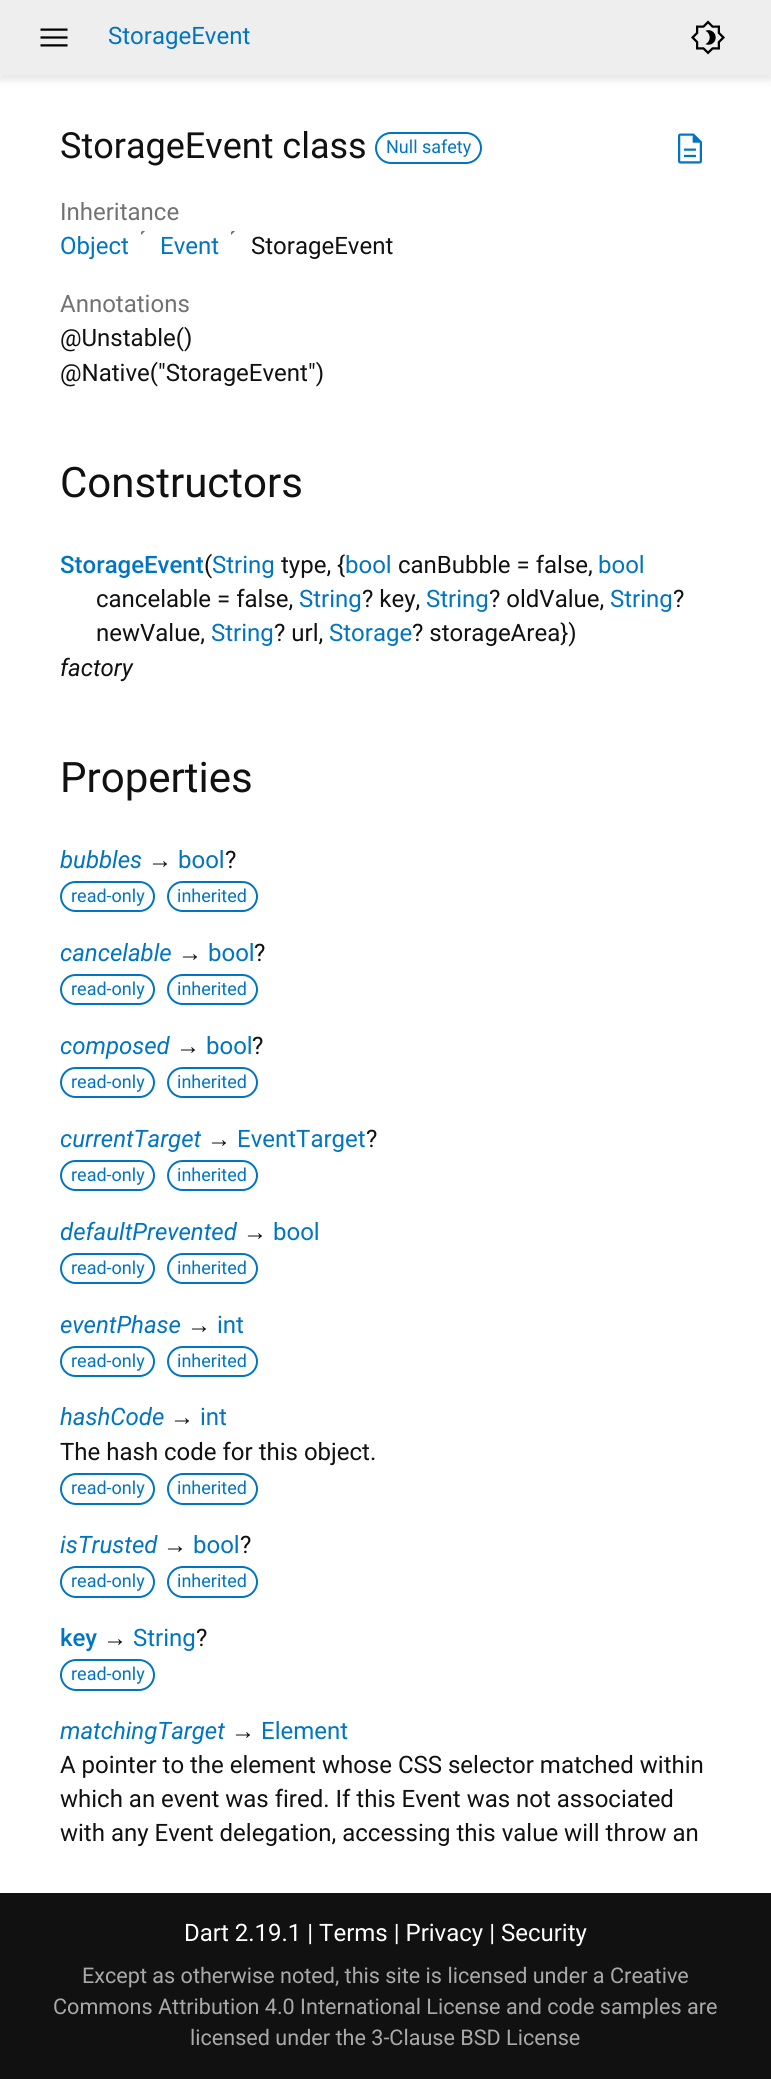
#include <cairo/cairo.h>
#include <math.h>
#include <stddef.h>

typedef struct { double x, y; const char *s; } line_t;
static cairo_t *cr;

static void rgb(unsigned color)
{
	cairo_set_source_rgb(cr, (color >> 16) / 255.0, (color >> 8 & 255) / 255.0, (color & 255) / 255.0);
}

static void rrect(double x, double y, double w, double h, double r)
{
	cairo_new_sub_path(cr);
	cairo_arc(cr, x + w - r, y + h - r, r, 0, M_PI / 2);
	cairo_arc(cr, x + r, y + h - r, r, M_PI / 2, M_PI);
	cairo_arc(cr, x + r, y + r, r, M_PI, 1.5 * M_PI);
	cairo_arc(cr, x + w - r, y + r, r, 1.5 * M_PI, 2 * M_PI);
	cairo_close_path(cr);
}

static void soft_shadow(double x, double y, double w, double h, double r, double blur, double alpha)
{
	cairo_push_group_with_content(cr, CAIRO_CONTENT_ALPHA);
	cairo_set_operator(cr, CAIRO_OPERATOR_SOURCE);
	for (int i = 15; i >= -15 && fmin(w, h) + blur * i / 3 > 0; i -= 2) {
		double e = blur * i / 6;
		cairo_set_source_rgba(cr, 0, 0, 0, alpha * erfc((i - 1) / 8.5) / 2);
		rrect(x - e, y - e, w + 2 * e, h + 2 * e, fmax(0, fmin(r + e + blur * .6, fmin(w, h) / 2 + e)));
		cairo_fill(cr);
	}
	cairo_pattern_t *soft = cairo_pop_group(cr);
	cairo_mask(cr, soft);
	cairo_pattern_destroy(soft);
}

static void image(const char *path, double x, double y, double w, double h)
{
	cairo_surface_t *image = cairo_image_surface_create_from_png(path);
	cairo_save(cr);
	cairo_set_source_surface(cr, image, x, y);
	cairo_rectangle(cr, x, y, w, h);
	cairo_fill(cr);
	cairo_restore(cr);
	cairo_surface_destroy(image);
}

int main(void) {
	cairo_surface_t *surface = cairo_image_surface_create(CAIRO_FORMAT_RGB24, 771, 2079);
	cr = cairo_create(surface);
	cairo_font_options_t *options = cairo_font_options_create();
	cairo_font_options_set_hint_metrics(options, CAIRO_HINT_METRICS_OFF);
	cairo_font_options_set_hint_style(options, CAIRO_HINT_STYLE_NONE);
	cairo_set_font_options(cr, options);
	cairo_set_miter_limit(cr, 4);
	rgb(0xffffff);
	cairo_paint(cr);
	rgb(0x000000);
	soft_shadow(0, 5, 771, 75, 0, 4, 0.1);
	rgb(0xeeeeee);
	cairo_rectangle(cr, 0, 0, 771, 75);
	cairo_fill(cr);
	image("img/1.png", 40, 28, 28, 19);
	image("img/2.png", 691, 20, 34, 35);
	rrect(376, 133, 105, 30, 15);
	rgb(0x0175c2);
	cairo_stroke(cr);
	image("img/3.png", 678, 133, 24, 31);
	image("img/4.png", 141, 231, 4, 4);
	image("img/4.png", 231, 231, 4, 4);
	rrect(61, 882, 93, 29, 14.5);
	cairo_stroke(cr);
	rrect(168, 882, 89, 29, 14.5);
	cairo_stroke(cr);
	rrect(61, 975, 93, 29, 14.5);
	cairo_stroke(cr);
	rrect(168, 975, 89, 29, 14.5);
	cairo_stroke(cr);
	rrect(61, 1068, 93, 29, 14.5);
	cairo_stroke(cr);
	rrect(168, 1068, 89, 29, 14.5);
	cairo_stroke(cr);
	rrect(61, 1161, 93, 29, 14.5);
	cairo_stroke(cr);
	rrect(168, 1161, 89, 29, 14.5);
	cairo_stroke(cr);
	rrect(61, 1254, 93, 29, 14.5);
	cairo_stroke(cr);
	rrect(168, 1254, 89, 29, 14.5);
	cairo_stroke(cr);
	rrect(61, 1347, 93, 29, 14.5);
	cairo_stroke(cr);
	rrect(168, 1347, 89, 29, 14.5);
	cairo_stroke(cr);
	rrect(61, 1474, 93, 30, 15);
	cairo_stroke(cr);
	rrect(168, 1474, 89, 30, 15);
	cairo_stroke(cr);
	rrect(61, 1567, 93, 30, 15);
	cairo_stroke(cr);
	rrect(168, 1567, 89, 30, 15);
	cairo_stroke(cr);
	rrect(61, 1660, 93, 30, 15);
	cairo_stroke(cr);
	rgb(0x111111);
	cairo_rectangle(cr, 0, 1893, 771, 186);
	cairo_fill(cr);
	cairo_select_font_face(cr, "Roboto", CAIRO_FONT_SLANT_NORMAL, CAIRO_FONT_WEIGHT_NORMAL);
	cairo_set_font_size(cr, 24);
	rgb(0x0175c2);
	cairo_move_to(cr, 108, 44);
	cairo_show_text(cr, "StorageEvent");
	cairo_set_font_size(cr, 36);
	rgb(0x111111);
	cairo_move_to(cr, 60, 158);
	cairo_show_text(cr, "StorageEvent class");
	cairo_set_font_size(cr, 18);
	rgb(0x0175c2);
	cairo_move_to(cr, 386, 153);
	cairo_show_text(cr, "Null safety");
	cairo_set_font_size(cr, 24);
	rgb(0x727272);
	cairo_move_to(cr, 60, 220);
	cairo_show_text(cr, "Inheritance");
	rgb(0x0175c2);
	cairo_move_to(cr, 60, 254);
	cairo_show_text(cr, "Object");
	cairo_move_to(cr, 160, 254);
	cairo_show_text(cr, "Event");
	rgb(0x111111);
	cairo_move_to(cr, 251, 254);
	cairo_show_text(cr, "StorageEvent");
	rgb(0x727272);
	cairo_move_to(cr, 60, 312);
	cairo_show_text(cr, "Annotations");
	rgb(0x111111);
	cairo_move_to(cr, 60, 346);
	cairo_show_text(cr, "@Unstable()");
	cairo_move_to(cr, 60, 381);
	cairo_show_text(cr, "@Native(\"StorageEvent\")");
	cairo_set_font_size(cr, 42);
	cairo_move_to(cr, 60, 497);
	cairo_show_text(cr, "Constructors");
	cairo_select_font_face(cr, "Roboto Medium", CAIRO_FONT_SLANT_NORMAL, CAIRO_FONT_WEIGHT_NORMAL);
	cairo_set_font_size(cr, 24);
	rgb(0x0175c2);
	cairo_move_to(cr, 60, 573);
	cairo_show_text(cr, "StorageEvent");
	cairo_select_font_face(cr, "Roboto", CAIRO_FONT_SLANT_NORMAL, CAIRO_FONT_WEIGHT_NORMAL);
	rgb(0x111111);
	cairo_move_to(cr, 204, 573);
	cairo_show_text(cr, "(");
	rgb(0x0175c2);
	cairo_move_to(cr, 212, 573);
	cairo_show_text(cr, "String");
	rgb(0x111111);
	cairo_move_to(cr, 281, 573);
	cairo_show_text(cr, "type, {");
	rgb(0x0175c2);
	cairo_move_to(cr, 345, 573);
	cairo_show_text(cr, "bool");
	rgb(0x111111);
	cairo_move_to(cr, 398, 573);
	cairo_show_text(cr, "canBubble = false,");
	rgb(0x0175c2);
	cairo_move_to(cr, 598, 573);
	cairo_show_text(cr, "bool");
	rgb(0x111111);
	cairo_move_to(cr, 96, 607);
	cairo_show_text(cr, "cancelable = false,");
	rgb(0x0175c2);
	cairo_move_to(cr, 299, 607);
	cairo_show_text(cr, "String");
	rgb(0x111111);
	cairo_move_to(cr, 362, 607);
	cairo_show_text(cr, "? key,");
	rgb(0x0175c2);
	cairo_move_to(cr, 426, 607);
	cairo_show_text(cr, "String");
	rgb(0x111111);
	cairo_move_to(cr, 489, 607);
	cairo_show_text(cr, "? oldValue,");
	rgb(0x0175c2);
	cairo_move_to(cr, 610, 607);
	cairo_show_text(cr, "String");
	rgb(0x111111);
	cairo_move_to(cr, 673, 607);
	cairo_show_text(cr, "?");
	cairo_move_to(cr, 96, 641);
	cairo_show_text(cr, "newValue,");
	rgb(0x0175c2);
	cairo_move_to(cr, 211, 641);
	cairo_show_text(cr, "String");
	rgb(0x111111);
	cairo_move_to(cr, 274, 641);
	cairo_show_text(cr, "? url,");
	rgb(0x0175c2);
	cairo_move_to(cr, 329, 641);
	cairo_show_text(cr, "Storage");
	rgb(0x111111);
	cairo_move_to(cr, 412, 641);
	cairo_show_text(cr, "? storageArea})");
	cairo_select_font_face(cr, "Roboto", CAIRO_FONT_SLANT_ITALIC, CAIRO_FONT_WEIGHT_NORMAL);
	cairo_move_to(cr, 60, 676);
	cairo_show_text(cr, "factory");
	cairo_select_font_face(cr, "Roboto", CAIRO_FONT_SLANT_NORMAL, CAIRO_FONT_WEIGHT_NORMAL);
	cairo_set_font_size(cr, 42);
	cairo_move_to(cr, 60, 792);
	cairo_show_text(cr, "Properties");
	cairo_select_font_face(cr, "Roboto", CAIRO_FONT_SLANT_ITALIC, CAIRO_FONT_WEIGHT_NORMAL);
	cairo_set_font_size(cr, 24);
	rgb(0x0175c2);
	cairo_move_to(cr, 60, 868);
	cairo_show_text(cr, "bubbles");
	cairo_select_font_face(cr, "Liberation Sans", CAIRO_FONT_SLANT_NORMAL, CAIRO_FONT_WEIGHT_NORMAL);
	rgb(0x111111);
	cairo_move_to(cr, 148, 868);
	cairo_show_text(cr, "→");
	cairo_select_font_face(cr, "Roboto", CAIRO_FONT_SLANT_NORMAL, CAIRO_FONT_WEIGHT_NORMAL);
	rgb(0x0175c2);
	cairo_move_to(cr, 178, 868);
	cairo_show_text(cr, "bool");
	rgb(0x111111);
	cairo_move_to(cr, 225, 868);
	cairo_show_text(cr, "?");
	cairo_set_font_size(cr, 18);
	rgb(0x0175c2);
	cairo_move_to(cr, 71, 902);
	cairo_show_text(cr, "read-only");
	cairo_move_to(cr, 177, 902);
	cairo_show_text(cr, "inherited");
	cairo_select_font_face(cr, "Roboto", CAIRO_FONT_SLANT_ITALIC, CAIRO_FONT_WEIGHT_NORMAL);
	cairo_set_font_size(cr, 24);
	cairo_move_to(cr, 60, 961);
	cairo_show_text(cr, "cancelable");
	cairo_select_font_face(cr, "Liberation Sans", CAIRO_FONT_SLANT_NORMAL, CAIRO_FONT_WEIGHT_NORMAL);
	rgb(0x111111);
	cairo_move_to(cr, 178, 961);
	cairo_show_text(cr, "→");
	cairo_select_font_face(cr, "Roboto", CAIRO_FONT_SLANT_NORMAL, CAIRO_FONT_WEIGHT_NORMAL);
	rgb(0x0175c2);
	cairo_move_to(cr, 208, 961);
	cairo_show_text(cr, "bool");
	rgb(0x111111);
	cairo_move_to(cr, 254, 961);
	cairo_show_text(cr, "?");
	cairo_set_font_size(cr, 18);
	rgb(0x0175c2);
	cairo_move_to(cr, 71, 995);
	cairo_show_text(cr, "read-only");
	cairo_move_to(cr, 177, 995);
	cairo_show_text(cr, "inherited");
	cairo_select_font_face(cr, "Roboto", CAIRO_FONT_SLANT_ITALIC, CAIRO_FONT_WEIGHT_NORMAL);
	cairo_set_font_size(cr, 24);
	cairo_move_to(cr, 60, 1054);
	cairo_show_text(cr, "composed");
	cairo_select_font_face(cr, "Liberation Sans", CAIRO_FONT_SLANT_NORMAL, CAIRO_FONT_WEIGHT_NORMAL);
	rgb(0x111111);
	cairo_move_to(cr, 176, 1054);
	cairo_show_text(cr, "→");
	cairo_select_font_face(cr, "Roboto", CAIRO_FONT_SLANT_NORMAL, CAIRO_FONT_WEIGHT_NORMAL);
	rgb(0x0175c2);
	cairo_move_to(cr, 206, 1054);
	cairo_show_text(cr, "bool");
	rgb(0x111111);
	cairo_move_to(cr, 252, 1054);
	cairo_show_text(cr, "?");
	cairo_set_font_size(cr, 18);
	rgb(0x0175c2);
	cairo_move_to(cr, 71, 1088);
	cairo_show_text(cr, "read-only");
	cairo_move_to(cr, 177, 1088);
	cairo_show_text(cr, "inherited");
	cairo_select_font_face(cr, "Roboto", CAIRO_FONT_SLANT_ITALIC, CAIRO_FONT_WEIGHT_NORMAL);
	cairo_set_font_size(cr, 24);
	cairo_move_to(cr, 60, 1147);
	cairo_show_text(cr, "currentTarget");
	cairo_select_font_face(cr, "Liberation Sans", CAIRO_FONT_SLANT_NORMAL, CAIRO_FONT_WEIGHT_NORMAL);
	rgb(0x111111);
	cairo_move_to(cr, 207, 1147);
	cairo_show_text(cr, "→");
	cairo_select_font_face(cr, "Roboto", CAIRO_FONT_SLANT_NORMAL, CAIRO_FONT_WEIGHT_NORMAL);
	rgb(0x0175c2);
	cairo_move_to(cr, 237, 1147);
	cairo_show_text(cr, "EventTarget");
	rgb(0x111111);
	cairo_move_to(cr, 366, 1147);
	cairo_show_text(cr, "?");
	cairo_set_font_size(cr, 18);
	rgb(0x0175c2);
	cairo_move_to(cr, 71, 1181);
	cairo_show_text(cr, "read-only");
	cairo_move_to(cr, 177, 1181);
	cairo_show_text(cr, "inherited");
	cairo_select_font_face(cr, "Roboto", CAIRO_FONT_SLANT_ITALIC, CAIRO_FONT_WEIGHT_NORMAL);
	cairo_set_font_size(cr, 24);
	cairo_move_to(cr, 60, 1240);
	cairo_show_text(cr, "defaultPrevented");
	cairo_select_font_face(cr, "Liberation Sans", CAIRO_FONT_SLANT_NORMAL, CAIRO_FONT_WEIGHT_NORMAL);
	rgb(0x111111);
	cairo_move_to(cr, 243, 1240);
	cairo_show_text(cr, "→");
	cairo_select_font_face(cr, "Roboto", CAIRO_FONT_SLANT_NORMAL, CAIRO_FONT_WEIGHT_NORMAL);
	rgb(0x0175c2);
	cairo_move_to(cr, 273, 1240);
	cairo_show_text(cr, "bool");
	cairo_set_font_size(cr, 18);
	cairo_move_to(cr, 71, 1274);
	cairo_show_text(cr, "read-only");
	cairo_move_to(cr, 177, 1274);
	cairo_show_text(cr, "inherited");
	cairo_select_font_face(cr, "Roboto", CAIRO_FONT_SLANT_ITALIC, CAIRO_FONT_WEIGHT_NORMAL);
	cairo_set_font_size(cr, 24);
	cairo_move_to(cr, 60, 1333);
	cairo_show_text(cr, "eventPhase");
	cairo_select_font_face(cr, "Liberation Sans", CAIRO_FONT_SLANT_NORMAL, CAIRO_FONT_WEIGHT_NORMAL);
	rgb(0x111111);
	cairo_move_to(cr, 187, 1333);
	cairo_show_text(cr, "→");
	cairo_select_font_face(cr, "Roboto", CAIRO_FONT_SLANT_NORMAL, CAIRO_FONT_WEIGHT_NORMAL);
	rgb(0x0175c2);
	cairo_move_to(cr, 217, 1333);
	cairo_show_text(cr, "int");
	cairo_set_font_size(cr, 18);
	cairo_move_to(cr, 71, 1367);
	cairo_show_text(cr, "read-only");
	cairo_move_to(cr, 177, 1367);
	cairo_show_text(cr, "inherited");
	cairo_select_font_face(cr, "Roboto", CAIRO_FONT_SLANT_ITALIC, CAIRO_FONT_WEIGHT_NORMAL);
	cairo_set_font_size(cr, 24);
	cairo_move_to(cr, 60, 1425);
	cairo_show_text(cr, "hashCode");
	cairo_select_font_face(cr, "Liberation Sans", CAIRO_FONT_SLANT_NORMAL, CAIRO_FONT_WEIGHT_NORMAL);
	rgb(0x111111);
	cairo_move_to(cr, 170, 1425);
	cairo_show_text(cr, "→");
	cairo_select_font_face(cr, "Roboto", CAIRO_FONT_SLANT_NORMAL, CAIRO_FONT_WEIGHT_NORMAL);
	rgb(0x0175c2);
	cairo_move_to(cr, 200, 1425);
	cairo_show_text(cr, "int");
	rgb(0x111111);
	cairo_move_to(cr, 60, 1460);
	cairo_show_text(cr, "The hash code for this object.");
	cairo_set_font_size(cr, 18);
	rgb(0x0175c2);
	cairo_move_to(cr, 71, 1494);
	cairo_show_text(cr, "read-only");
	cairo_move_to(cr, 177, 1494);
	cairo_show_text(cr, "inherited");
	cairo_select_font_face(cr, "Roboto", CAIRO_FONT_SLANT_ITALIC, CAIRO_FONT_WEIGHT_NORMAL);
	cairo_set_font_size(cr, 24);
	cairo_move_to(cr, 60, 1553);
	cairo_show_text(cr, "isTrusted");
	cairo_select_font_face(cr, "Liberation Sans", CAIRO_FONT_SLANT_NORMAL, CAIRO_FONT_WEIGHT_NORMAL);
	rgb(0x111111);
	cairo_move_to(cr, 163, 1553);
	cairo_show_text(cr, "→");
	cairo_select_font_face(cr, "Roboto", CAIRO_FONT_SLANT_NORMAL, CAIRO_FONT_WEIGHT_NORMAL);
	rgb(0x0175c2);
	cairo_move_to(cr, 193, 1553);
	cairo_show_text(cr, "bool");
	rgb(0x111111);
	cairo_move_to(cr, 240, 1553);
	cairo_show_text(cr, "?");
	cairo_set_font_size(cr, 18);
	rgb(0x0175c2);
	cairo_move_to(cr, 71, 1587);
	cairo_show_text(cr, "read-only");
	cairo_move_to(cr, 177, 1587);
	cairo_show_text(cr, "inherited");
	cairo_select_font_face(cr, "Roboto Medium", CAIRO_FONT_SLANT_NORMAL, CAIRO_FONT_WEIGHT_NORMAL);
	cairo_set_font_size(cr, 24);
	cairo_move_to(cr, 60, 1646);
	cairo_show_text(cr, "key");
	cairo_select_font_face(cr, "Liberation Sans", CAIRO_FONT_SLANT_NORMAL, CAIRO_FONT_WEIGHT_NORMAL);
	rgb(0x111111);
	cairo_move_to(cr, 103, 1646);
	cairo_show_text(cr, "→");
	cairo_select_font_face(cr, "Roboto", CAIRO_FONT_SLANT_NORMAL, CAIRO_FONT_WEIGHT_NORMAL);
	rgb(0x0175c2);
	cairo_move_to(cr, 133, 1646);
	cairo_show_text(cr, "String");
	rgb(0x111111);
	cairo_move_to(cr, 196, 1646);
	cairo_show_text(cr, "?");
	cairo_set_font_size(cr, 18);
	rgb(0x0175c2);
	cairo_move_to(cr, 71, 1680);
	cairo_show_text(cr, "read-only");
	cairo_select_font_face(cr, "Roboto", CAIRO_FONT_SLANT_ITALIC, CAIRO_FONT_WEIGHT_NORMAL);
	cairo_set_font_size(cr, 24);
	cairo_move_to(cr, 60, 1739);
	cairo_show_text(cr, "matchingTarget");
	cairo_select_font_face(cr, "Liberation Sans", CAIRO_FONT_SLANT_NORMAL, CAIRO_FONT_WEIGHT_NORMAL);
	rgb(0x111111);
	cairo_move_to(cr, 231, 1739);
	cairo_show_text(cr, "→");
	cairo_select_font_face(cr, "Roboto", CAIRO_FONT_SLANT_NORMAL, CAIRO_FONT_WEIGHT_NORMAL);
	rgb(0x0175c2);
	cairo_move_to(cr, 261, 1739);
	cairo_show_text(cr, "Element");
	rgb(0x111111);
	{
		static const line_t items[] = {
			{60, 1773, "A pointer to the element whose CSS selector matched within"},
			{60, 1807, "which an event was fired. If this Event was not associated"},
			{60, 1841, "with any Event delegation, accessing this value will throw an"},
		};
		for (size_t i = 0; i < sizeof items / sizeof *items; i++) {
			cairo_move_to(cr, items[i].x, items[i].y);
			cairo_show_text(cr, items[i].s);
		}
	}
	rgb(0xffffff);
	cairo_move_to(cr, 184, 1941);
	cairo_show_text(cr, "Dart 2.19.1 | Terms | Privacy | Security");
	cairo_set_font_size(cr, 21.6);
	rgb(0xa9a9a9);
	{
		static const line_t items[] = {
			{82, 1983, "Except as otherwise noted, this site is licensed under a"},
			{610, 1983, "Creative"},
			{53, 2014, "Commons Attribution 4.0 International License"},
			{506, 2014, "and code samples are"},
			{190, 2045, "licensed under the 3-Clause BSD License"},
		};
		for (size_t i = 0; i < sizeof items / sizeof *items; i++) {
			cairo_move_to(cr, items[i].x, items[i].y);
			cairo_show_text(cr, items[i].s);
		}
	}
	cairo_surface_write_to_png(surface, "page.png");
	cairo_font_options_destroy(options);
	cairo_destroy(cr);
	cairo_surface_destroy(surface);
	return 0;
}
